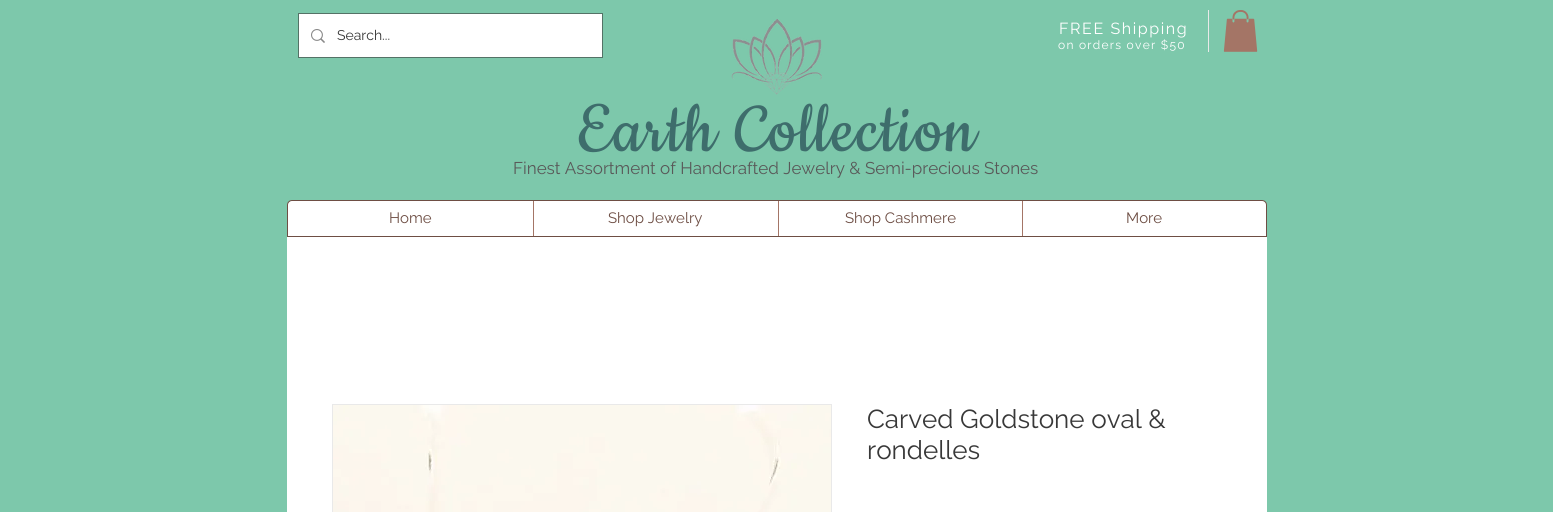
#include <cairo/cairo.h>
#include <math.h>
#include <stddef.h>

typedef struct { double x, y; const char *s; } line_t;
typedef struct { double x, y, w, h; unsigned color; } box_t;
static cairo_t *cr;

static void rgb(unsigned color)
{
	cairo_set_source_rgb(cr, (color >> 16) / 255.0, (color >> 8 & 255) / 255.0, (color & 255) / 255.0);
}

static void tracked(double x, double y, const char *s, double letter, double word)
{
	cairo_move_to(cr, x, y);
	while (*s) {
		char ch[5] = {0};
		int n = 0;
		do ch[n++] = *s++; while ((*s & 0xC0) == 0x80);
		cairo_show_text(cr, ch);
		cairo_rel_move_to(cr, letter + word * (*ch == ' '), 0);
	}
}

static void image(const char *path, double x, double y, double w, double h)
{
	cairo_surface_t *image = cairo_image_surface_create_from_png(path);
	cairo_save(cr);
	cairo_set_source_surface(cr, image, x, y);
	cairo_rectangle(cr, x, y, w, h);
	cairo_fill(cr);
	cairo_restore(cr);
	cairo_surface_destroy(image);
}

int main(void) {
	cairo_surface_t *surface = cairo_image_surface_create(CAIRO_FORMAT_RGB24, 1553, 512);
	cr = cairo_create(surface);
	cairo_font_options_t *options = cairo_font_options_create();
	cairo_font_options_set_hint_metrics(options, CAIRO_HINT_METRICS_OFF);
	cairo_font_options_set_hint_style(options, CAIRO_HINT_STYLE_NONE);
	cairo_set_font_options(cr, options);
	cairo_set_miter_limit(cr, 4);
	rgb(0x7dc8ab);
	cairo_paint(cr);
	cairo_rectangle(cr, 298.5, 13.5, 304, 44);
	rgb(0x547266);
	cairo_set_line_width(cr, 1);
	cairo_stroke(cr);
	rgb(0xffffff);
	cairo_rectangle(cr, 299, 14, 303, 43);
	cairo_fill(cr);
	image("img/1.png", 311, 29, 14, 14);
	image("img/2.png", 731, 19, 91, 76);
	rgb(0xe9e9e9);
	cairo_rectangle(cr, 1208, 10, 1, 42);
	cairo_fill(cr);
	image("img/3.png", 1223, 10, 35, 42);
	rgb(0xffffff);
	cairo_new_path(cr);
	cairo_move_to(cr, 292, 200.5);
	cairo_line_to(cr, 1262, 200.5);
	cairo_curve_to(cr, 1264.5, 200.5, 1266.5, 202.5, 1266.5, 205);
	cairo_line_to(cr, 1266.5, 236.5);
	cairo_line_to(cr, 287.5, 236.5);
	cairo_line_to(cr, 287.5, 205);
	cairo_curve_to(cr, 287.5, 202.5, 289.5, 200.5, 292, 200.5);
	cairo_close_path(cr);
	cairo_fill_preserve(cr);
	rgb(0x6e4e44);
	cairo_stroke(cr);
	{
		static const box_t items[] = {
			{533, 201, 1, 35, 0xa47566},
			{778, 201, 1, 35, 0xa47566},
			{1022, 201, 1, 35, 0xa47566},
			{287, 237, 980, 275, 0xffffff},
		};
		for (size_t i = 0; i < sizeof items / sizeof *items; i++) {
			rgb(items[i].color);
			cairo_rectangle(cr, items[i].x, items[i].y, items[i].w, items[i].h);
			cairo_fill(cr);
		}
	}
	cairo_rectangle(cr, 332.5, 404.5, 499, 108);
	rgb(0xe9e9e9);
	cairo_stroke(cr);
	image("img/4.png", 333, 405, 498, 107);
	cairo_select_font_face(cr, "Raleway", CAIRO_FONT_SLANT_NORMAL, CAIRO_FONT_WEIGHT_NORMAL);
	cairo_set_font_size(cr, 14);
	rgb(0x383838);
	cairo_move_to(cr, 337, 40);
	cairo_show_text(cr, "Search...");
	cairo_set_font_size(cr, 16);
	rgb(0xffffff);
	tracked(1059, 34, "FREE Shipping", 1.6, 0);
	cairo_set_font_size(cr, 12);
	tracked(1058, 49, "on orders over $50", 1.25, 0);
	cairo_select_font_face(cr, "Cookie", CAIRO_FONT_SLANT_NORMAL, CAIRO_FONT_WEIGHT_NORMAL);
	cairo_set_font_size(cr, 79);
	rgb(0x3e6d6c);
	tracked(577, 151, "Earth Collection", 2, 0);
	cairo_select_font_face(cr, "Raleway", CAIRO_FONT_SLANT_NORMAL, CAIRO_FONT_WEIGHT_NORMAL);
	cairo_set_font_size(cr, 17);
	rgb(0x595959);
	cairo_move_to(cr, 513, 174);
	cairo_show_text(cr, "Finest Assortment of Handcrafted Jewelry & Semi-precious Stones");
	cairo_set_font_size(cr, 15);
	rgb(0x6e4e44);
	{
		static const line_t items[] = {
			{389, 223, "Home"},
			{608, 223, "Shop Jewelry"},
			{845, 223, "Shop Cashmere"},
			{1126, 223, "More"},
		};
		for (size_t i = 0; i < sizeof items / sizeof *items; i++) {
			cairo_move_to(cr, items[i].x, items[i].y);
			cairo_show_text(cr, items[i].s);
		}
	}
	cairo_set_font_size(cr, 26);
	rgb(0x383838);
	cairo_move_to(cr, 867, 428);
	cairo_show_text(cr, "Carved Goldstone oval &");
	cairo_move_to(cr, 867, 459);
	cairo_show_text(cr, "rondelles");
	cairo_surface_write_to_png(surface, "page.png");
	cairo_font_options_destroy(options);
	cairo_destroy(cr);
	cairo_surface_destroy(surface);
	return 0;
}
